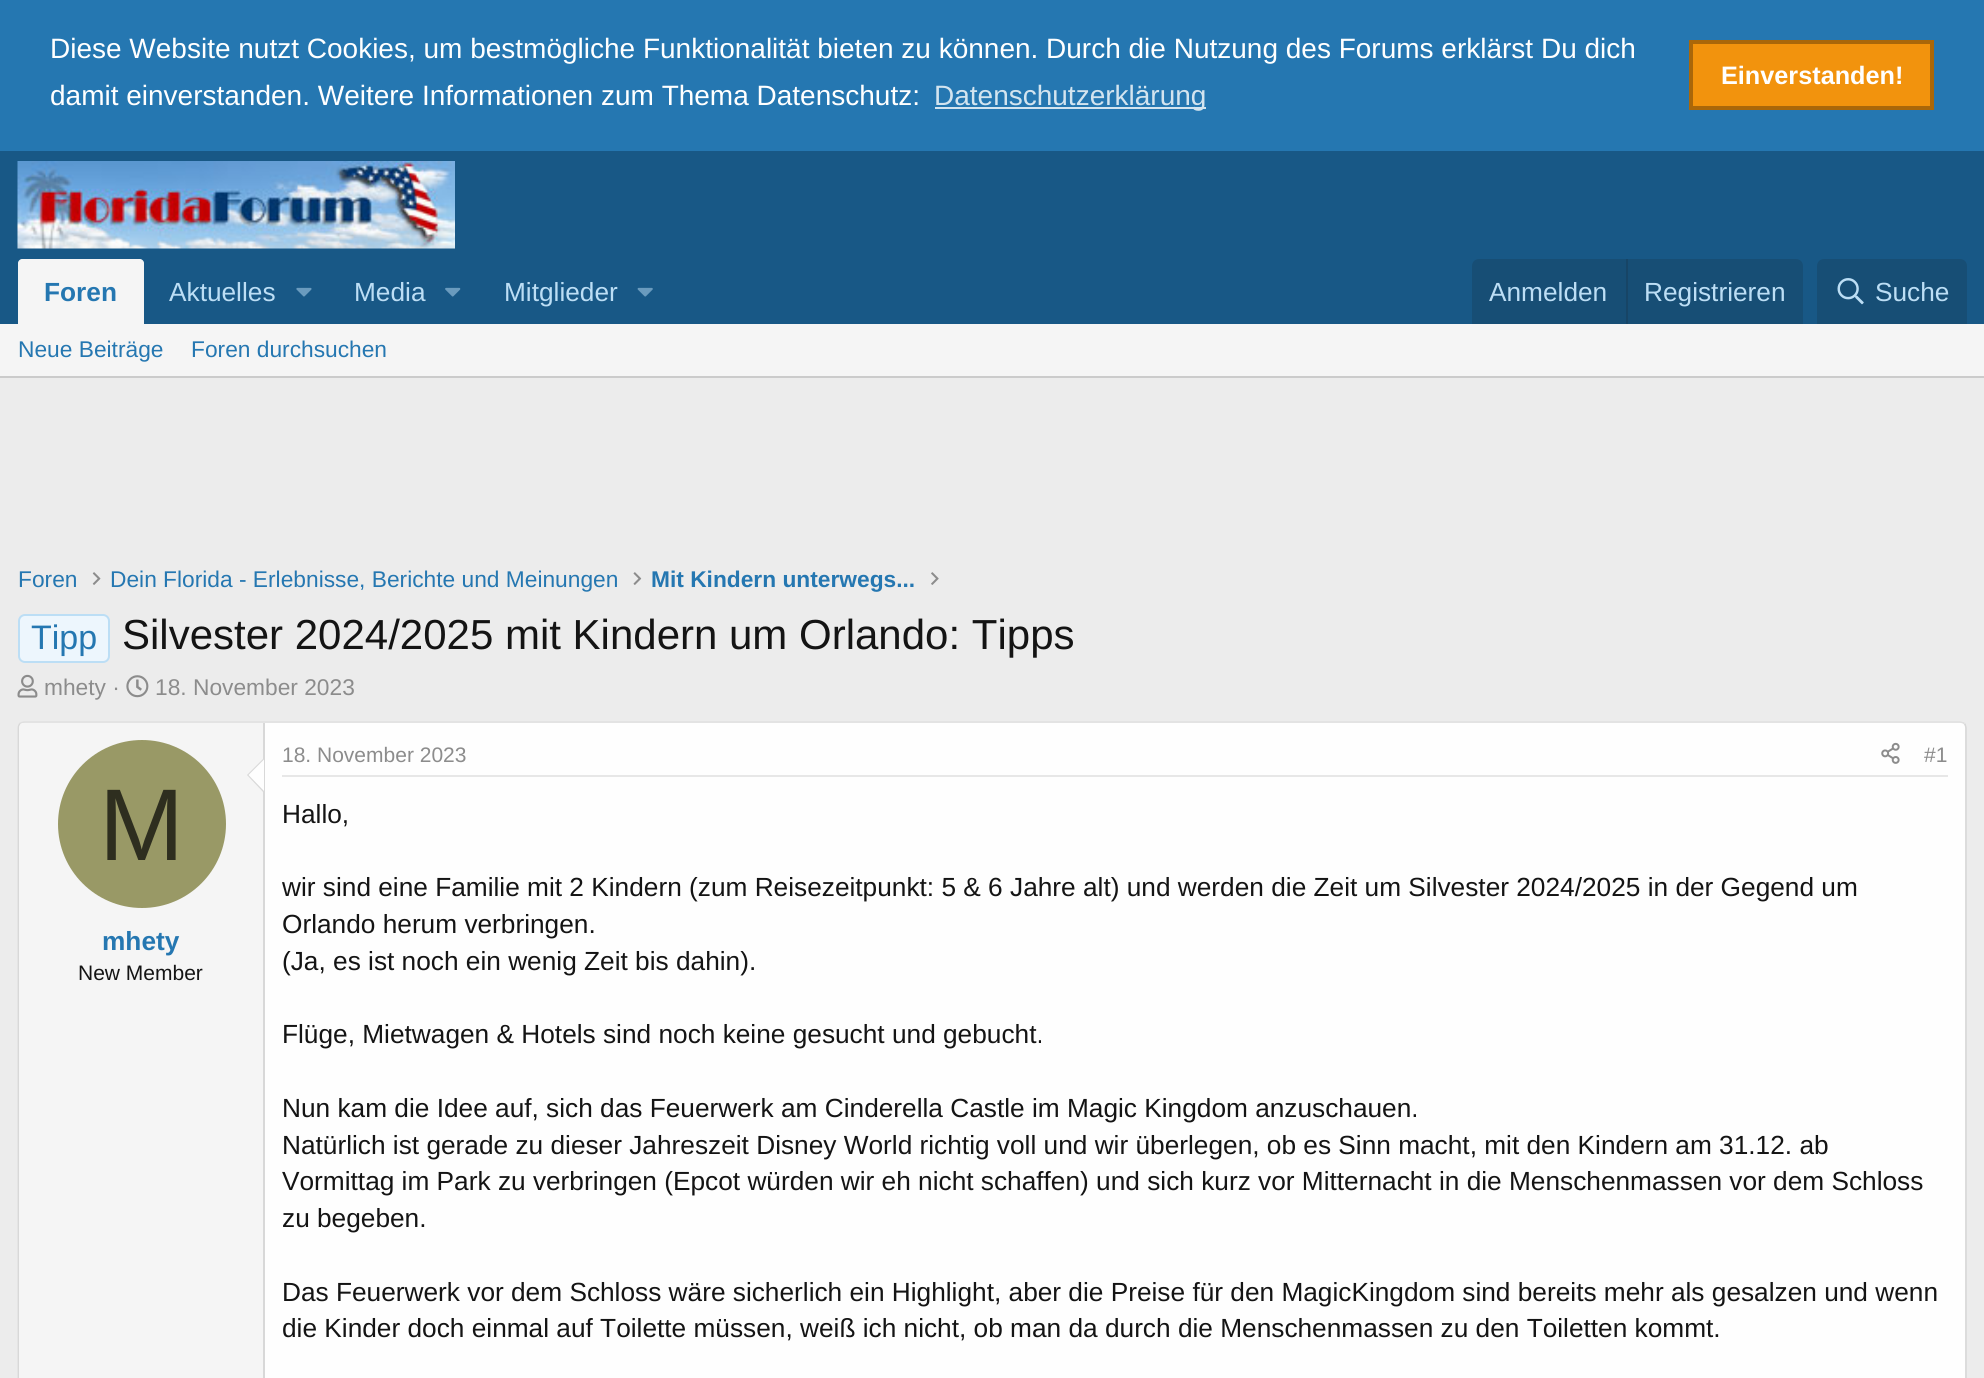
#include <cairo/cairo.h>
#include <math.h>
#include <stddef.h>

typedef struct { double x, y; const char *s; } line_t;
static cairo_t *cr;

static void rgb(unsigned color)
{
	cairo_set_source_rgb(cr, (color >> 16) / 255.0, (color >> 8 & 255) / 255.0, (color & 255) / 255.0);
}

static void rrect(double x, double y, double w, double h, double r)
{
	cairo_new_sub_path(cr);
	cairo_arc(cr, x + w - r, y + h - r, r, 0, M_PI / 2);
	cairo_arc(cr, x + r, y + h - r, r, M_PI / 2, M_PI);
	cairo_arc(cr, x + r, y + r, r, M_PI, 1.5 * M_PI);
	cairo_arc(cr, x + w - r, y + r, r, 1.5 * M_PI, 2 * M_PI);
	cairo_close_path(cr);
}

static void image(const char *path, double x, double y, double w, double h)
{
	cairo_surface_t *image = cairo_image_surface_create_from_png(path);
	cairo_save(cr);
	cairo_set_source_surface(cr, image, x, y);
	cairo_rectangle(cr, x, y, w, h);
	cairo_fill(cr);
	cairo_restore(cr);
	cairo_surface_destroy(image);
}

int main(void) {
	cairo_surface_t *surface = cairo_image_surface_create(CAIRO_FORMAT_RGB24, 1984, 1378);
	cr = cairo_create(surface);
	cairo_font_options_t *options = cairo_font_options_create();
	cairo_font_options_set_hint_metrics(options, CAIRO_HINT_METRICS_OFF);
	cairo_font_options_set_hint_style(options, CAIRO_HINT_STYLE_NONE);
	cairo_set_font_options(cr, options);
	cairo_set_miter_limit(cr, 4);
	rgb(0xececec);
	cairo_paint(cr);
	rgb(0x2577b1);
	cairo_rectangle(cr, 0, 0, 1984, 151);
	cairo_fill(cr);
	rgb(0xd3e4ef);
	cairo_rectangle(cr, 935, 107, 271, 2);
	cairo_fill(cr);
	rgb(0xf2930d);
	cairo_rectangle(cr, 1691, 42, 241, 66);
	cairo_fill_preserve(cr);
	rgb(0xaa6709);
	cairo_set_line_width(cr, 4);
	cairo_stroke(cr);
	rgb(0x185886);
	cairo_rectangle(cr, 0, 151, 1984, 173);
	cairo_fill(cr);
	image("img/1.png", 17, 161, 438, 88);
	rgb(0xf5f5f5);
	cairo_new_path(cr);
	cairo_move_to(cr, 22, 259);
	cairo_line_to(cr, 140, 259);
	cairo_curve_to(cr, 142, 259, 144, 261, 144, 263);
	cairo_line_to(cr, 144, 324);
	cairo_line_to(cr, 18, 324);
	cairo_line_to(cr, 18, 263);
	cairo_curve_to(cr, 18, 261, 20, 259, 22, 259);
	cairo_close_path(cr);
	cairo_fill(cr);
	image("img/2.png", 296, 287, 16, 10);
	image("img/3.png", 445, 287, 16, 10);
	image("img/4.png", 637, 287, 16, 10);
	rgb(0x174e75);
	cairo_new_path(cr);
	cairo_move_to(cr, 1479, 259);
	cairo_line_to(cr, 1796, 259);
	cairo_curve_to(cr, 1800, 259, 1803, 262, 1803, 266);
	cairo_line_to(cr, 1803, 324);
	cairo_line_to(cr, 1472, 324);
	cairo_line_to(cr, 1472, 266);
	cairo_curve_to(cr, 1472, 262, 1475, 259, 1479, 259);
	cairo_close_path(cr);
	cairo_fill(cr);
	rgb(0x174566);
	cairo_rectangle(cr, 1626, 259, 2, 65);
	cairo_fill(cr);
	rgb(0x174e75);
	cairo_new_path(cr);
	cairo_move_to(cr, 1824, 259);
	cairo_line_to(cr, 1960, 259);
	cairo_curve_to(cr, 1964, 259, 1967, 262, 1967, 266);
	cairo_line_to(cr, 1967, 324);
	cairo_line_to(cr, 1817, 324);
	cairo_line_to(cr, 1817, 266);
	cairo_curve_to(cr, 1817, 262, 1820, 259, 1824, 259);
	cairo_close_path(cr);
	cairo_fill(cr);
	image("img/5.png", 1837, 278, 27, 27);
	rgb(0xf5f5f5);
	cairo_rectangle(cr, 0, 324, 1984, 52);
	cairo_fill(cr);
	rgb(0xcbcbcb);
	cairo_rectangle(cr, 0, 376, 1984, 2);
	cairo_fill(cr);
	image("img/6.png", 92, 572, 9, 13);
	image("img/7.png", 633, 572, 9, 13);
	image("img/8.png", 931, 572, 8, 13);
	rgb(0xedf6fd);
	rrect(19, 615, 90, 47, 6);
	cairo_fill_preserve(cr);
	rgb(0xbcdef5);
	cairo_set_line_width(cr, 2);
	cairo_stroke(cr);
	image("img/9.png", 17, 674, 21, 24);
	image("img/10.png", 126, 675, 23, 23);
	rgb(0xfefefe);
	rrect(18, 721, 1949, 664, 7);
	cairo_fill(cr);
	cairo_new_path(cr);
	cairo_move_to(cr, 20, 723.5);
	cairo_curve_to(cr, 21.5, 722.5, 23, 722, 24.5, 722);
	cairo_line_to(cr, 1960, 722);
	cairo_curve_to(cr, 1961.5, 722, 1963, 722.5, 1964.5, 723.5);
	rgb(0xdfdfdf);
	cairo_set_line_width(cr, 1.8);
	cairo_stroke(cr);
	cairo_new_path(cr);
	cairo_move_to(cr, 1964.5, 723.5);
	cairo_curve_to(cr, 1965.5, 725, 1966, 726.5, 1966, 728);
	cairo_line_to(cr, 1966, 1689);
	cairo_curve_to(cr, 1966, 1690.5, 1965.5, 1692, 1964.5, 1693);
	rgb(0xd8d8d8);
	cairo_stroke(cr);
	cairo_new_path(cr);
	cairo_move_to(cr, 20, 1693);
	cairo_curve_to(cr, 19, 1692, 18.5, 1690.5, 18.5, 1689);
	cairo_line_to(cr, 18.5, 728);
	cairo_curve_to(cr, 18.5, 726.5, 19, 725, 20, 723.5);
	cairo_stroke(cr);
	rgb(0xf5f5f5);
	cairo_new_path(cr);
	cairo_move_to(cr, 24, 723);
	cairo_line_to(cr, 264, 723);
	cairo_line_to(cr, 264, 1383);
	cairo_line_to(cr, 24, 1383);
	cairo_curve_to(cr, 21, 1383, 19, 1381, 19, 1378);
	cairo_line_to(cr, 19, 728);
	cairo_curve_to(cr, 19, 725, 21, 723, 24, 723);
	cairo_close_path(cr);
	cairo_fill(cr);
	rgb(0xd8d8d8);
	cairo_rectangle(cr, 263, 723, 2, 655);
	cairo_fill(cr);
	cairo_new_path(cr);
	cairo_move_to(cr, 264, 758);
	cairo_line_to(cr, 264, 793);
	cairo_line_to(cr, 247, 775);
	cairo_close_path(cr);
	cairo_fill(cr);
	rgb(0xfefefe);
	cairo_new_path(cr);
	cairo_move_to(cr, 264, 759.5);
	cairo_line_to(cr, 264, 791);
	cairo_line_to(cr, 248.5, 775);
	cairo_close_path(cr);
	cairo_fill(cr);
	rgb(0x999966);
	cairo_arc(cr, 142, 824, 84, 0, 2 * M_PI);
	cairo_fill(cr);
	rgb(0xe7e7e7);
	cairo_rectangle(cr, 282, 775, 1666, 2);
	cairo_fill(cr);
	image("img/11.png", 1881, 742, 19, 22);
	cairo_select_font_face(cr, "Liberation Sans", CAIRO_FONT_SLANT_NORMAL, CAIRO_FONT_WEIGHT_NORMAL);
	cairo_set_font_size(cr, 28);
	rgb(0xffffff);
	cairo_move_to(cr, 50, 58);
	cairo_show_text(cr, "Diese Website nutzt Cookies, um bestmögliche Funktionalität bieten zu können. Durch die Nutzung des Forums erklärst Du dich");
	cairo_move_to(cr, 50, 105);
	cairo_show_text(cr, "damit einverstanden. Weitere Informationen zum Thema Datenschutz:");
	rgb(0xd3e4ef);
	cairo_move_to(cr, 934, 105);
	cairo_show_text(cr, "Datenschutzerklärung");
	cairo_select_font_face(cr, "Liberation Sans", CAIRO_FONT_SLANT_NORMAL, CAIRO_FONT_WEIGHT_BOLD);
	cairo_set_font_size(cr, 25.25);
	rgb(0xffffff);
	cairo_move_to(cr, 1721, 84);
	cairo_show_text(cr, "Einverstanden!");
	cairo_set_font_size(cr, 26.25);
	rgb(0x2577b1);
	cairo_move_to(cr, 44, 301);
	cairo_show_text(cr, "Foren");
	cairo_select_font_face(cr, "Liberation Sans", CAIRO_FONT_SLANT_NORMAL, CAIRO_FONT_WEIGHT_NORMAL);
	rgb(0xbcdef5);
	{
		static const line_t items[] = {
			{169, 301, "Aktuelles"},
			{354, 301, "Media"},
			{504, 301, "Mitglieder"},
			{1489, 301, "Anmelden"},
			{1644, 301, "Registrieren"},
			{1875, 301, "Suche"},
		};
		for (size_t i = 0; i < sizeof items / sizeof *items; i++) {
			cairo_move_to(cr, items[i].x, items[i].y);
			cairo_show_text(cr, items[i].s);
		}
	}
	cairo_set_font_size(cr, 22.75);
	rgb(0x2577b1);
	{
		static const line_t items[] = {
			{18, 357, "Neue Beiträge"},
			{191, 357, "Foren durchsuchen"},
			{18, 587, "Foren"},
			{110, 587, "Dein Florida - Erlebnisse, Berichte und Meinungen"},
		};
		for (size_t i = 0; i < sizeof items / sizeof *items; i++) {
			cairo_move_to(cr, items[i].x, items[i].y);
			cairo_show_text(cr, items[i].s);
		}
	}
	cairo_select_font_face(cr, "Liberation Sans", CAIRO_FONT_SLANT_NORMAL, CAIRO_FONT_WEIGHT_BOLD);
	cairo_move_to(cr, 651, 587);
	cairo_show_text(cr, "Mit Kindern unterwegs...");
	cairo_select_font_face(cr, "Liberation Sans", CAIRO_FONT_SLANT_NORMAL, CAIRO_FONT_WEIGHT_NORMAL);
	cairo_set_font_size(cr, 34);
	cairo_move_to(cr, 31, 649);
	cairo_show_text(cr, "Tipp");
	cairo_set_font_size(cr, 42);
	rgb(0x141414);
	cairo_move_to(cr, 122, 649);
	cairo_show_text(cr, "Silvester 2024/2025 mit Kindern um Orlando: Tipps");
	cairo_set_font_size(cr, 22.75);
	rgb(0x8c8c8c);
	cairo_move_to(cr, 44, 695);
	cairo_show_text(cr, "mhety ·");
	cairo_move_to(cr, 155, 695);
	cairo_show_text(cr, "18. November 2023");
	cairo_set_font_size(cr, 102);
	rgb(0x2e2e1f);
	cairo_move_to(cr, 99, 860);
	cairo_show_text(cr, "M");
	cairo_select_font_face(cr, "Liberation Sans", CAIRO_FONT_SLANT_NORMAL, CAIRO_FONT_WEIGHT_BOLD);
	cairo_set_font_size(cr, 26.25);
	rgb(0x2577b1);
	cairo_move_to(cr, 102, 950);
	cairo_show_text(cr, "mhety");
	cairo_select_font_face(cr, "Liberation Sans", CAIRO_FONT_SLANT_NORMAL, CAIRO_FONT_WEIGHT_NORMAL);
	cairo_set_font_size(cr, 21);
	rgb(0x141414);
	cairo_move_to(cr, 78, 980);
	cairo_show_text(cr, "New Member");
	rgb(0x8c8c8c);
	cairo_move_to(cr, 282, 762);
	cairo_show_text(cr, "18. November 2023");
	cairo_move_to(cr, 1924, 762);
	cairo_show_text(cr, "#1");
	cairo_set_font_size(cr, 26.25);
	rgb(0x141414);
	{
		static const line_t items[] = {
			{282, 823, "Hallo,"},
			{282, 896, "wir sind eine Familie mit 2 Kindern (zum Reisezeitpunkt: 5 & 6 Jahre alt) und werden die Zeit um Silvester 2024/2025 in der Gegend um"},
			{282, 933, "Orlando herum verbringen."},
			{282, 970, "(Ja, es ist noch ein wenig Zeit bis dahin)."},
			{282, 1043, "Flüge, Mietwagen & Hotels sind noch keine gesucht und gebucht."},
			{282, 1117, "Nun kam die Idee auf, sich das Feuerwerk am Cinderella Castle im Magic Kingdom anzuschauen."},
			{282, 1154, "Natürlich ist gerade zu dieser Jahreszeit Disney World richtig voll und wir überlegen, ob es Sinn macht, mit den Kindern am 31.12. ab"},
			{282, 1190, "Vormittag im Park zu verbringen (Epcot würden wir eh nicht schaffen) und sich kurz vor Mitternacht in die Menschenmassen vor dem Schloss"},
			{282, 1227, "zu begeben."},
			{282, 1301, "Das Feuerwerk vor dem Schloss wäre sicherlich ein Highlight, aber die Preise für den MagicKingdom sind bereits mehr als gesalzen und wenn"},
			{282, 1337, "die Kinder doch einmal auf Toilette müssen, weiß ich nicht, ob man da durch die Menschenmassen zu den Toiletten kommt."},
		};
		for (size_t i = 0; i < sizeof items / sizeof *items; i++) {
			cairo_move_to(cr, items[i].x, items[i].y);
			cairo_show_text(cr, items[i].s);
		}
	}
	cairo_surface_write_to_png(surface, "page.png");
	cairo_font_options_destroy(options);
	cairo_destroy(cr);
	cairo_surface_destroy(surface);
	return 0;
}
